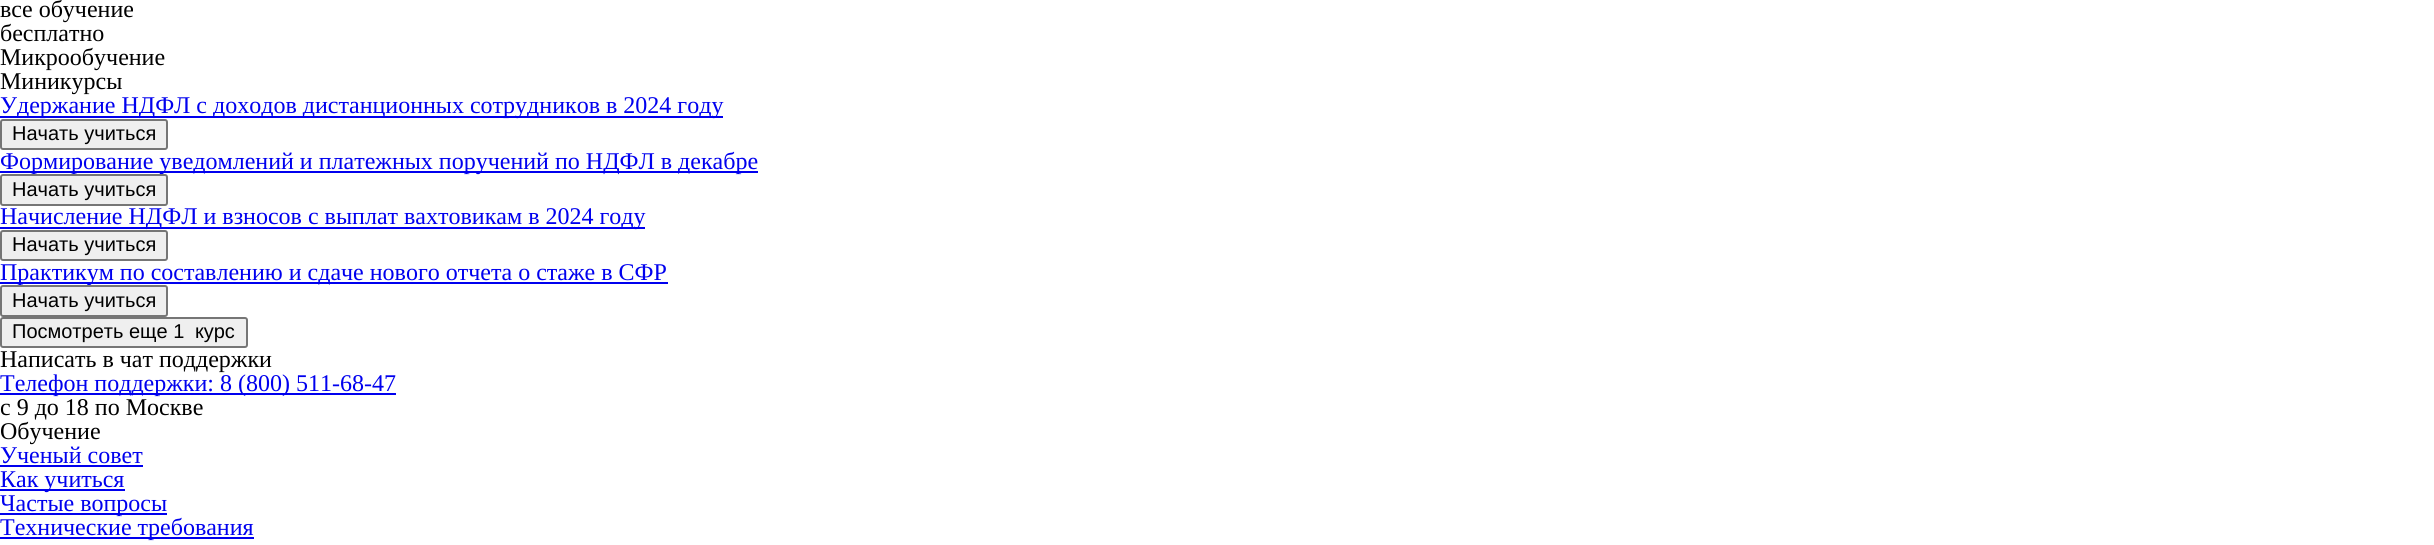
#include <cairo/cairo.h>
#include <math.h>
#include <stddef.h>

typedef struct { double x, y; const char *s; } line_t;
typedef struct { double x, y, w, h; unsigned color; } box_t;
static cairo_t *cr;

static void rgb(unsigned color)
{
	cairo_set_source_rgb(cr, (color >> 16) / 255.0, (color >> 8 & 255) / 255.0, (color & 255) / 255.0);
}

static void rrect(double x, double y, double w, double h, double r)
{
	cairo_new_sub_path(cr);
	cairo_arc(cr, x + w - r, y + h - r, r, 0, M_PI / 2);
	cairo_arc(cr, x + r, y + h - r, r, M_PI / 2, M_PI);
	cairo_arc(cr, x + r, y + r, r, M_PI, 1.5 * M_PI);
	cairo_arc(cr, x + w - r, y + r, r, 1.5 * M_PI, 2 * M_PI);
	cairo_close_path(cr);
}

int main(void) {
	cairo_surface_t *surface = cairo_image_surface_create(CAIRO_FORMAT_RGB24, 2434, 545);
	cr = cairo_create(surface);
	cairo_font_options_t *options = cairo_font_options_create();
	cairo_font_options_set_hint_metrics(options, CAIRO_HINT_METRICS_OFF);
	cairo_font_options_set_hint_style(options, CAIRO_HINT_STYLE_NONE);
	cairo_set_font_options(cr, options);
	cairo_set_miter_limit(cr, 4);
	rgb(0xffffff);
	cairo_paint(cr);
	rgb(0x0000ee);
	cairo_rectangle(cr, 0, 116, 723, 2);
	cairo_fill(cr);
	rgb(0xefefef);
	rrect(1, 120, 166, 29, 2);
	cairo_fill_preserve(cr);
	rgb(0x767676);
	cairo_stroke(cr);
	rgb(0x0000ee);
	cairo_rectangle(cr, 0, 171, 758, 2);
	cairo_fill(cr);
	cairo_rectangle(cr, 0, 227, 645, 2);
	cairo_fill(cr);
	rgb(0xefefef);
	rrect(1, 231, 166, 29, 2);
	cairo_fill_preserve(cr);
	rgb(0x767676);
	cairo_stroke(cr);
	rgb(0x0000ee);
	cairo_rectangle(cr, 0, 282, 668, 2);
	cairo_fill(cr);
	rgb(0xefefef);
	rrect(1, 318, 246, 29, 2);
	cairo_fill_preserve(cr);
	rgb(0x767676);
	cairo_stroke(cr);
	{
		static const box_t items[] = {
			{0, 393, 396, 2, 0x0000ee},
			{0, 465, 143, 2, 0x0000ee},
			{0, 489, 125, 2, 0x0000ee},
			{0, 513, 167, 2, 0x0000ee},
			{0, 537, 254, 2, 0x0000ee},
		};
		for (size_t i = 0; i < sizeof items / sizeof *items; i++) {
			rgb(items[i].color);
			cairo_rectangle(cr, items[i].x, items[i].y, items[i].w, items[i].h);
			cairo_fill(cr);
		}
	}
	cairo_select_font_face(cr, "Liberation Serif", CAIRO_FONT_SLANT_NORMAL, CAIRO_FONT_WEIGHT_NORMAL);
	cairo_set_font_size(cr, 24);
	rgb(0x000000);
	{
		static const line_t items[] = {
			{0, 17, "все обучение"},
			{0, 41, "бесплатно"},
			{0, 65, "Микрообучение"},
			{0, 89, "Миникурсы"},
		};
		for (size_t i = 0; i < sizeof items / sizeof *items; i++) {
			cairo_move_to(cr, items[i].x, items[i].y);
			cairo_show_text(cr, items[i].s);
		}
	}
	rgb(0x0000ee);
	cairo_move_to(cr, 0, 113);
	cairo_show_text(cr, "Удержание НДФЛ с доходов дистанционных сотрудников в 2024 году");
	cairo_select_font_face(cr, "Liberation Sans", CAIRO_FONT_SLANT_NORMAL, CAIRO_FONT_WEIGHT_NORMAL);
	cairo_set_font_size(cr, 20);
	rgb(0x000000);
	cairo_move_to(cr, 12, 140);
	cairo_show_text(cr, "Начать учиться");
	cairo_select_font_face(cr, "Liberation Serif", CAIRO_FONT_SLANT_NORMAL, CAIRO_FONT_WEIGHT_NORMAL);
	cairo_set_font_size(cr, 24);
	rgb(0x0000ee);
	cairo_move_to(cr, 0, 169);
	cairo_show_text(cr, "Формирование уведомлений и платежных поручений по НДФЛ в декабре");
	rgb(0xefefef);
	rrect(1, 175, 166, 30, 2);
	cairo_fill_preserve(cr);
	rgb(0x767676);
	cairo_stroke(cr);
	cairo_select_font_face(cr, "Liberation Sans", CAIRO_FONT_SLANT_NORMAL, CAIRO_FONT_WEIGHT_NORMAL);
	cairo_set_font_size(cr, 20);
	rgb(0x000000);
	cairo_move_to(cr, 12, 196);
	cairo_show_text(cr, "Начать учиться");
	cairo_select_font_face(cr, "Liberation Serif", CAIRO_FONT_SLANT_NORMAL, CAIRO_FONT_WEIGHT_NORMAL);
	cairo_set_font_size(cr, 24);
	rgb(0x0000ee);
	cairo_move_to(cr, 0, 224);
	cairo_show_text(cr, "Начисление НДФЛ и взносов с выплат вахтовикам в 2024 году");
	cairo_select_font_face(cr, "Liberation Sans", CAIRO_FONT_SLANT_NORMAL, CAIRO_FONT_WEIGHT_NORMAL);
	cairo_set_font_size(cr, 20);
	rgb(0x000000);
	cairo_move_to(cr, 12, 251);
	cairo_show_text(cr, "Начать учиться");
	cairo_select_font_face(cr, "Liberation Serif", CAIRO_FONT_SLANT_NORMAL, CAIRO_FONT_WEIGHT_NORMAL);
	cairo_set_font_size(cr, 24);
	rgb(0x0000ee);
	cairo_move_to(cr, 0, 280);
	cairo_show_text(cr, "Практикум по составлению и сдаче нового отчета о стаже в СФР");
	rgb(0xefefef);
	rrect(1, 286, 166, 30, 2);
	cairo_fill_preserve(cr);
	rgb(0x767676);
	cairo_stroke(cr);
	cairo_select_font_face(cr, "Liberation Sans", CAIRO_FONT_SLANT_NORMAL, CAIRO_FONT_WEIGHT_NORMAL);
	cairo_set_font_size(cr, 20);
	rgb(0x000000);
	{
		static const line_t items[] = {
			{12, 307, "Начать учиться"},
			{12, 338, "Посмотреть еще 1"},
			{195, 338, "курс"},
		};
		for (size_t i = 0; i < sizeof items / sizeof *items; i++) {
			cairo_move_to(cr, items[i].x, items[i].y);
			cairo_show_text(cr, items[i].s);
		}
	}
	cairo_select_font_face(cr, "Liberation Serif", CAIRO_FONT_SLANT_NORMAL, CAIRO_FONT_WEIGHT_NORMAL);
	cairo_set_font_size(cr, 24);
	cairo_move_to(cr, 0, 367);
	cairo_show_text(cr, "Написать в чат поддержки");
	rgb(0x0000ee);
	cairo_move_to(cr, 0, 391);
	cairo_show_text(cr, "Телефон поддержки: 8 (800) 511-68-47");
	rgb(0x000000);
	cairo_move_to(cr, 0, 415);
	cairo_show_text(cr, "с 9 до 18 по Москве");
	cairo_move_to(cr, 0, 439);
	cairo_show_text(cr, "Обучение");
	rgb(0x0000ee);
	{
		static const line_t items[] = {
			{0, 463, "Ученый совет"},
			{0, 487, "Как учиться"},
			{0, 511, "Частые вопросы"},
			{0, 535, "Технические требования"},
		};
		for (size_t i = 0; i < sizeof items / sizeof *items; i++) {
			cairo_move_to(cr, items[i].x, items[i].y);
			cairo_show_text(cr, items[i].s);
		}
	}
	cairo_surface_write_to_png(surface, "page.png");
	cairo_font_options_destroy(options);
	cairo_destroy(cr);
	cairo_surface_destroy(surface);
	return 0;
}
